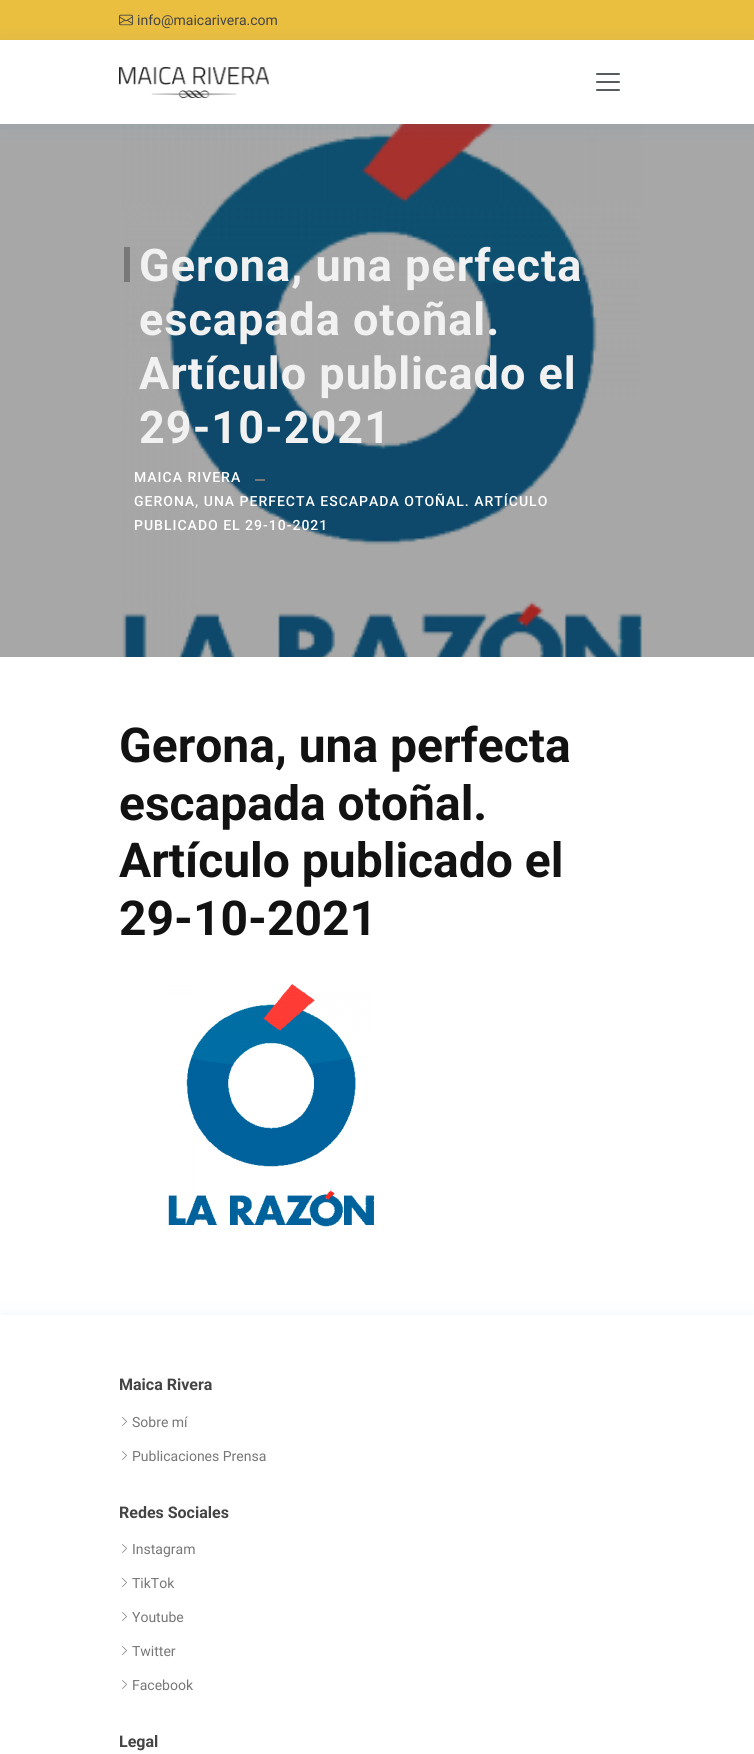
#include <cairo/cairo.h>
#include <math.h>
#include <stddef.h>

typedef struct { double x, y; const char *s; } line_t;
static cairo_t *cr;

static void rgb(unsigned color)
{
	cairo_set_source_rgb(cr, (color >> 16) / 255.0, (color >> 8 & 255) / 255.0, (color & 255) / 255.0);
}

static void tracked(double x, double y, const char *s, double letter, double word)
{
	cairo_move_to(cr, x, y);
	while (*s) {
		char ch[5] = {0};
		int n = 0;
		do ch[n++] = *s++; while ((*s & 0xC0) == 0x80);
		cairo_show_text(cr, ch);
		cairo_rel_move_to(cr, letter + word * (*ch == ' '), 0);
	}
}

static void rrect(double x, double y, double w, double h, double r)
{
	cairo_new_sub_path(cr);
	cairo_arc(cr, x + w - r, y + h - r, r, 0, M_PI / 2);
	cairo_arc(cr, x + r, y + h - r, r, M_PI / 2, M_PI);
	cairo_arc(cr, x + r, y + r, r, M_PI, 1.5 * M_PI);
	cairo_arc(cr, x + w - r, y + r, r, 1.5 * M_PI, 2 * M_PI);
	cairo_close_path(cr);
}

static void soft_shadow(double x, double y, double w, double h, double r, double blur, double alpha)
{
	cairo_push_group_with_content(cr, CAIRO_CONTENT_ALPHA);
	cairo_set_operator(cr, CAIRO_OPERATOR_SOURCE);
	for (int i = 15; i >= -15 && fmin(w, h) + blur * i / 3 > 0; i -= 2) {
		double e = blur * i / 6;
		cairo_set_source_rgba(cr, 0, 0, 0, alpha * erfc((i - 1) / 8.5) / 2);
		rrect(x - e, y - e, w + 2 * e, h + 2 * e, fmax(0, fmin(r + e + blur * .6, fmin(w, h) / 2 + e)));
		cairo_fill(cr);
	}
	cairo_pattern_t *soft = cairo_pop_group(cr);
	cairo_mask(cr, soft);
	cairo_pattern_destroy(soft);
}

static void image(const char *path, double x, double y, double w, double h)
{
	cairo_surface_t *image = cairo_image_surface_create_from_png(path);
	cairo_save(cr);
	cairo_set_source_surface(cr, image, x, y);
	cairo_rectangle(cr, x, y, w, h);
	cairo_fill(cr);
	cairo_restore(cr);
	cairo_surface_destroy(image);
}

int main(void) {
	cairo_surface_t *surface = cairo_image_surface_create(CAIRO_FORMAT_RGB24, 754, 1754);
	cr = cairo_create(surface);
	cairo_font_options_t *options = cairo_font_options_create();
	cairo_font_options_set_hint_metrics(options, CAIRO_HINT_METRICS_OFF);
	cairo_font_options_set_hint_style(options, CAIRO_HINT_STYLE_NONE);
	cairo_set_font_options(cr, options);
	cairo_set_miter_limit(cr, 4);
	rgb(0xffffff);
	cairo_paint(cr);
	rgb(0xa7a7a7);
	cairo_rectangle(cr, 0, 124, 754, 533);
	cairo_fill(cr);
	rgb(0xeabe3f);
	cairo_rectangle(cr, 0, 0, 754, 40);
	cairo_fill(cr);
	image("img/1.png", 119, 14, 14, 12);
	image("img/4.png", 122, 124, 520, 533);
	rgb(0x1977cc);
	soft_shadow(0, 42, 754, 84, 0, 7.5, 0.1);
	rgb(0xffffff);
	cairo_rectangle(cr, 0, 40, 754, 84);
	cairo_fill(cr);
	image("img/2.png", 119, 67, 150, 31);
	image("img/3.png", 596, 73, 24, 18);
	rgb(0x787878);
	cairo_rectangle(cr, 124, 247, 6, 35);
	cairo_fill(cr);
	cairo_rectangle(cr, 255, 479, 10, 2);
	cairo_fill(cr);
	image("img/5.png", 168, 984, 206, 243);
	rgb(0x1977cc);
	soft_shadow(0, 1317, 754, 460, 0, 7.5, 0.1);
	rgb(0xffffff);
	cairo_rectangle(cr, 0, 1315, 754, 439);
	cairo_fill(cr);
	image("img/6.png", 122, 1417, 5, 9);
	image("img/6.png", 122, 1451, 5, 9);
	image("img/6.png", 122, 1544, 5, 9);
	image("img/6.png", 122, 1578, 5, 9);
	image("img/6.png", 122, 1612, 5, 9);
	image("img/6.png", 122, 1646, 5, 9);
	image("img/6.png", 122, 1680, 5, 9);
	cairo_select_font_face(cr, "Roboto", CAIRO_FONT_SLANT_NORMAL, CAIRO_FONT_WEIGHT_NORMAL);
	cairo_set_font_size(cr, 14);
	rgb(0x444444);
	cairo_move_to(cr, 137, 25);
	cairo_show_text(cr, "info@maicarivera.com");
	cairo_select_font_face(cr, "Roboto", CAIRO_FONT_SLANT_NORMAL, CAIRO_FONT_WEIGHT_BOLD);
	cairo_set_font_size(cr, 45);
	rgb(0xf1f1f1);
	{
		static const line_t items[] = {
			{139, 281, "Gerona, una perfecta"},
			{139, 335, "escapada otoñal."},
			{139, 389, "Artículo publicado el"},
			{139, 443, "29-10-2021"},
		};
		for (size_t i = 0; i < sizeof items / sizeof *items; i++) {
			tracked(items[i].x, items[i].y, items[i].s, 1, 0);
		}
	}
	cairo_select_font_face(cr, "Roboto Medium", CAIRO_FONT_SLANT_NORMAL, CAIRO_FONT_WEIGHT_NORMAL);
	cairo_set_font_size(cr, 14);
	rgb(0xffffff);
	{
		static const line_t items[] = {
			{134, 482, "MAICA RIVERA"},
			{134, 506, "GERONA, UNA PERFECTA ESCAPADA OTOÑAL. ARTÍCULO"},
			{134, 530, "PUBLICADO EL 29-10-2021"},
		};
		for (size_t i = 0; i < sizeof items / sizeof *items; i++) {
			tracked(items[i].x, items[i].y, items[i].s, 1, 0);
		}
	}
	cairo_select_font_face(cr, "Roboto", CAIRO_FONT_SLANT_NORMAL, CAIRO_FONT_WEIGHT_BOLD);
	cairo_set_font_size(cr, 48);
	rgb(0x121212);
	{
		static const line_t items[] = {
			{119, 762, "Gerona, una perfecta"},
			{119, 820, "escapada otoñal."},
			{119, 877, "Artículo publicado el"},
			{119, 935, "29-10-2021"},
		};
		for (size_t i = 0; i < sizeof items / sizeof *items; i++) {
			cairo_move_to(cr, items[i].x, items[i].y);
			cairo_show_text(cr, items[i].s);
		}
	}
	cairo_set_font_size(cr, 16);
	rgb(0x444444);
	cairo_move_to(cr, 119, 1390);
	cairo_show_text(cr, "Maica Rivera");
	cairo_select_font_face(cr, "Roboto", CAIRO_FONT_SLANT_NORMAL, CAIRO_FONT_WEIGHT_NORMAL);
	cairo_set_font_size(cr, 14);
	rgb(0x777777);
	cairo_move_to(cr, 132, 1427);
	cairo_show_text(cr, "Sobre mí");
	cairo_move_to(cr, 132, 1461);
	cairo_show_text(cr, "Publicaciones Prensa");
	cairo_select_font_face(cr, "Roboto", CAIRO_FONT_SLANT_NORMAL, CAIRO_FONT_WEIGHT_BOLD);
	cairo_set_font_size(cr, 16);
	rgb(0x444444);
	cairo_move_to(cr, 119, 1518);
	cairo_show_text(cr, "Redes Sociales");
	cairo_select_font_face(cr, "Roboto", CAIRO_FONT_SLANT_NORMAL, CAIRO_FONT_WEIGHT_NORMAL);
	cairo_set_font_size(cr, 14);
	rgb(0x777777);
	{
		static const line_t items[] = {
			{132, 1554, "Instagram"},
			{132, 1588, "TikTok"},
			{132, 1622, "Youtube"},
			{132, 1656, "Twitter"},
			{132, 1690, "Facebook"},
		};
		for (size_t i = 0; i < sizeof items / sizeof *items; i++) {
			cairo_move_to(cr, items[i].x, items[i].y);
			cairo_show_text(cr, items[i].s);
		}
	}
	cairo_select_font_face(cr, "Roboto", CAIRO_FONT_SLANT_NORMAL, CAIRO_FONT_WEIGHT_BOLD);
	cairo_set_font_size(cr, 16);
	rgb(0x444444);
	cairo_move_to(cr, 119, 1747);
	cairo_show_text(cr, "Legal");
	cairo_surface_write_to_png(surface, "page.png");
	cairo_font_options_destroy(options);
	cairo_destroy(cr);
	cairo_surface_destroy(surface);
	return 0;
}
